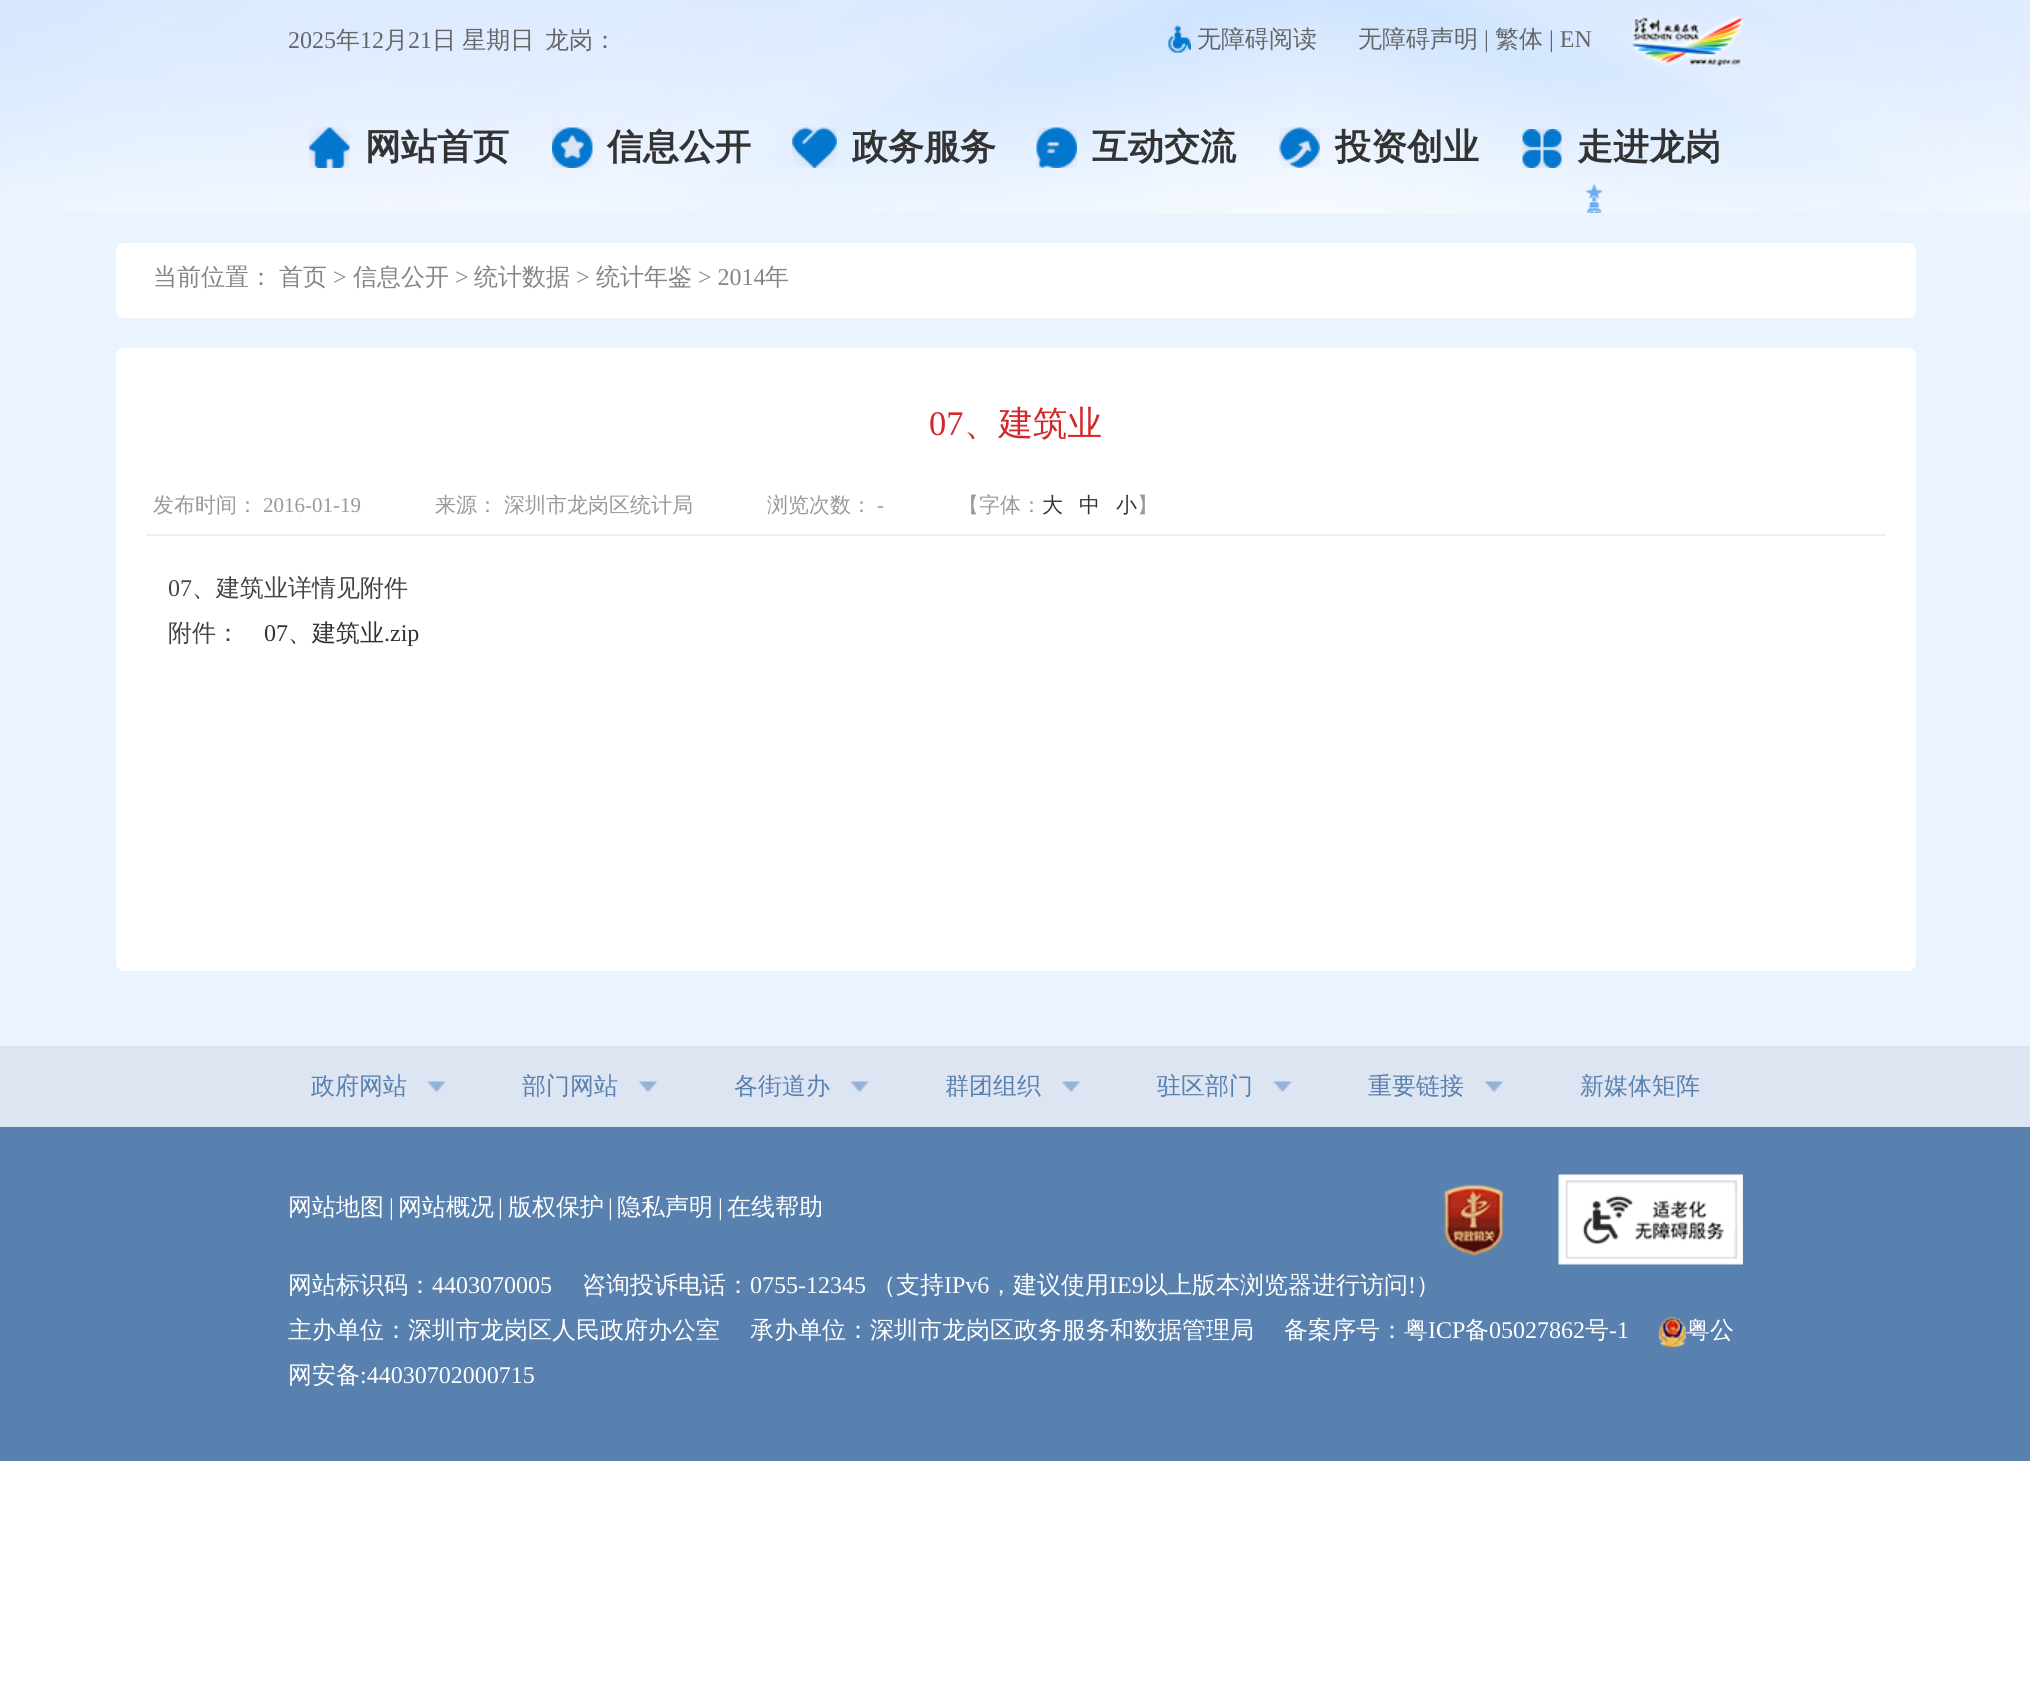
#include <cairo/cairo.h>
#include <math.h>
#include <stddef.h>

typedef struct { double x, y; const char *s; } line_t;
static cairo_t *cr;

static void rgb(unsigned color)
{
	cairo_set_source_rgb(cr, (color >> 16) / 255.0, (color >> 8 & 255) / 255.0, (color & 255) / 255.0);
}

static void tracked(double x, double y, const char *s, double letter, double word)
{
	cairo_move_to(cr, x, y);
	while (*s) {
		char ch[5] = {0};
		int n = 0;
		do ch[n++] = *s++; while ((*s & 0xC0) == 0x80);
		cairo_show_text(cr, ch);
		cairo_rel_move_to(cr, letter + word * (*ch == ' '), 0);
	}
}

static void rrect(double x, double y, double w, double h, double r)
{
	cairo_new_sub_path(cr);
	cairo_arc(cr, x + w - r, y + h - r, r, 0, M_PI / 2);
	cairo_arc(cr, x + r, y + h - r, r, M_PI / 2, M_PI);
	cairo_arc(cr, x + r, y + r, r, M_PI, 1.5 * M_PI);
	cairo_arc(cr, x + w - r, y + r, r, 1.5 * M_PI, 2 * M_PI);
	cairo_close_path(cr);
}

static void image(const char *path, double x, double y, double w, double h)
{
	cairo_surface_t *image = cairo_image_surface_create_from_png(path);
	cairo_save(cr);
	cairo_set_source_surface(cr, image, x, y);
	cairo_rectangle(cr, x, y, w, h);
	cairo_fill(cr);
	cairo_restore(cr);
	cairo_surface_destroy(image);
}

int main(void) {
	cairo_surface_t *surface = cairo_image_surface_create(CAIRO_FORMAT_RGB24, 2030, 1684);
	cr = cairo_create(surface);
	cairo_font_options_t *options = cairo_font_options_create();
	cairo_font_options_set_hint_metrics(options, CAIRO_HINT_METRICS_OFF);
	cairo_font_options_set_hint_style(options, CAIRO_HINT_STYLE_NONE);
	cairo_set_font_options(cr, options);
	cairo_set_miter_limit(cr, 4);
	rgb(0xffffff);
	cairo_paint(cr);
	image("img/1.png", 0, 0, 2030, 213);
	image("img/2.png", 1168, 25, 23, 28);
	image("img/3.png", 1632, 16, 111, 50);
	image("img/4.png", 309, 127, 41, 41);
	image("img/5.png", 552, 127, 41, 41);
	image("img/6.png", 792, 127, 45, 41);
	image("img/7.png", 1036, 127, 41, 41);
	image("img/8.png", 1279, 127, 41, 41);
	image("img/9.png", 1522, 129, 40, 39);
	rgb(0xebf3ff);
	cairo_rectangle(cr, 0, 213, 2030, 833);
	cairo_fill(cr);
	rgb(0xffffff);
	rrect(116, 243, 1800, 75, 8);
	cairo_fill(cr);
	rrect(116, 348, 1800, 623, 8);
	cairo_fill(cr);
	rgb(0xeeeeee);
	cairo_rectangle(cr, 146, 534, 1740, 2);
	cairo_fill(cr);
	rgb(0xdde5f2);
	cairo_rectangle(cr, 0, 1046, 2030, 81);
	cairo_fill(cr);
	image("img/10.png", 427, 1081, 19, 11);
	image("img/11.png", 639, 1081, 18, 11);
	image("img/12.png", 850, 1081, 19, 11);
	image("img/13.png", 1062, 1081, 18, 11);
	image("img/14.png", 1273, 1081, 19, 11);
	image("img/13.png", 1485, 1081, 18, 11);
	rgb(0x5981af);
	cairo_rectangle(cr, 0, 1127, 2030, 334);
	cairo_fill(cr);
	image("img/15.png", 1444, 1184, 59, 72);
	image("img/16.png", 1558, 1174, 185, 91);
	image("img/17.png", 1659, 1317, 27, 30);
	cairo_select_font_face(cr, "Liberation Serif", CAIRO_FONT_SLANT_NORMAL, CAIRO_FONT_WEIGHT_NORMAL);
	cairo_set_font_size(cr, 24);
	rgb(0x666666);
	cairo_move_to(cr, 288, 48);
	cairo_show_text(cr, "2025");
	cairo_select_font_face(cr, "WenQuanYi Zen Hei Medium", CAIRO_FONT_SLANT_NORMAL, CAIRO_FONT_WEIGHT_NORMAL);
	cairo_move_to(cr, 336, 48);
	cairo_show_text(cr, "年");
	cairo_select_font_face(cr, "Liberation Serif", CAIRO_FONT_SLANT_NORMAL, CAIRO_FONT_WEIGHT_NORMAL);
	cairo_move_to(cr, 360, 48);
	cairo_show_text(cr, "12");
	cairo_select_font_face(cr, "WenQuanYi Zen Hei Medium", CAIRO_FONT_SLANT_NORMAL, CAIRO_FONT_WEIGHT_NORMAL);
	cairo_move_to(cr, 384, 48);
	cairo_show_text(cr, "月");
	cairo_select_font_face(cr, "Liberation Serif", CAIRO_FONT_SLANT_NORMAL, CAIRO_FONT_WEIGHT_NORMAL);
	cairo_move_to(cr, 408, 48);
	cairo_show_text(cr, "21");
	cairo_select_font_face(cr, "WenQuanYi Zen Hei Medium", CAIRO_FONT_SLANT_NORMAL, CAIRO_FONT_WEIGHT_NORMAL);
	tracked(432, 48, "日 星期日", 0, -1);
	{
		static const line_t items[] = {
			{545, 48, "龙岗："},
			{1197, 47, "无障碍阅读"},
			{1358, 47, "无障碍声明"},
		};
		for (size_t i = 0; i < sizeof items / sizeof *items; i++) {
			cairo_move_to(cr, items[i].x, items[i].y);
			cairo_show_text(cr, items[i].s);
		}
	}
	cairo_select_font_face(cr, "Liberation Serif", CAIRO_FONT_SLANT_NORMAL, CAIRO_FONT_WEIGHT_NORMAL);
	cairo_move_to(cr, 1484, 47);
	cairo_show_text(cr, "|");
	cairo_select_font_face(cr, "WenQuanYi Zen Hei Medium", CAIRO_FONT_SLANT_NORMAL, CAIRO_FONT_WEIGHT_NORMAL);
	cairo_move_to(cr, 1495, 47);
	cairo_show_text(cr, "繁体");
	cairo_select_font_face(cr, "Liberation Serif", CAIRO_FONT_SLANT_NORMAL, CAIRO_FONT_WEIGHT_NORMAL);
	cairo_move_to(cr, 1549, 47);
	cairo_show_text(cr, "| EN");
	cairo_select_font_face(cr, "WenQuanYi Zen Hei", CAIRO_FONT_SLANT_NORMAL, CAIRO_FONT_WEIGHT_BOLD);
	cairo_set_font_size(cr, 36);
	rgb(0x333333);
	{
		static const line_t items[] = {
			{365, 159, "网站首页"},
			{607, 159, "信息公开"},
			{852, 159, "政务服务"},
			{1092, 159, "互动交流"},
			{1335, 159, "投资创业"},
			{1577, 159, "走进龙岗"},
		};
		for (size_t i = 0; i < sizeof items / sizeof *items; i++) {
			cairo_move_to(cr, items[i].x, items[i].y);
			cairo_show_text(cr, items[i].s);
		}
	}
	cairo_select_font_face(cr, "WenQuanYi Zen Hei Medium", CAIRO_FONT_SLANT_NORMAL, CAIRO_FONT_WEIGHT_NORMAL);
	cairo_set_font_size(cr, 24);
	rgb(0x858585);
	cairo_move_to(cr, 153, 285);
	cairo_show_text(cr, "当前位置：");
	cairo_move_to(cr, 279, 285);
	cairo_show_text(cr, "首页");
	cairo_select_font_face(cr, "Liberation Serif", CAIRO_FONT_SLANT_NORMAL, CAIRO_FONT_WEIGHT_NORMAL);
	cairo_move_to(cr, 333, 285);
	cairo_show_text(cr, ">");
	cairo_select_font_face(cr, "WenQuanYi Zen Hei Medium", CAIRO_FONT_SLANT_NORMAL, CAIRO_FONT_WEIGHT_NORMAL);
	cairo_move_to(cr, 353, 285);
	cairo_show_text(cr, "信息公开");
	cairo_select_font_face(cr, "Liberation Serif", CAIRO_FONT_SLANT_NORMAL, CAIRO_FONT_WEIGHT_NORMAL);
	cairo_move_to(cr, 455, 285);
	cairo_show_text(cr, ">");
	cairo_select_font_face(cr, "WenQuanYi Zen Hei Medium", CAIRO_FONT_SLANT_NORMAL, CAIRO_FONT_WEIGHT_NORMAL);
	cairo_move_to(cr, 474, 285);
	cairo_show_text(cr, "统计数据");
	cairo_select_font_face(cr, "Liberation Serif", CAIRO_FONT_SLANT_NORMAL, CAIRO_FONT_WEIGHT_NORMAL);
	cairo_move_to(cr, 576, 285);
	cairo_show_text(cr, ">");
	cairo_select_font_face(cr, "WenQuanYi Zen Hei Medium", CAIRO_FONT_SLANT_NORMAL, CAIRO_FONT_WEIGHT_NORMAL);
	cairo_move_to(cr, 596, 285);
	cairo_show_text(cr, "统计年鉴");
	cairo_select_font_face(cr, "Liberation Serif", CAIRO_FONT_SLANT_NORMAL, CAIRO_FONT_WEIGHT_NORMAL);
	cairo_move_to(cr, 698, 285);
	cairo_show_text(cr, "> 2014");
	cairo_select_font_face(cr, "WenQuanYi Zen Hei Medium", CAIRO_FONT_SLANT_NORMAL, CAIRO_FONT_WEIGHT_NORMAL);
	cairo_move_to(cr, 765, 285);
	cairo_show_text(cr, "年");
	cairo_select_font_face(cr, "Liberation Serif", CAIRO_FONT_SLANT_NORMAL, CAIRO_FONT_WEIGHT_NORMAL);
	cairo_set_font_size(cr, 34.5);
	rgb(0xd4272b);
	cairo_move_to(cr, 929, 435);
	cairo_show_text(cr, "07");
	cairo_select_font_face(cr, "WenQuanYi Zen Hei Medium", CAIRO_FONT_SLANT_NORMAL, CAIRO_FONT_WEIGHT_NORMAL);
	cairo_move_to(cr, 964, 435);
	cairo_show_text(cr, "、建筑业");
	cairo_set_font_size(cr, 21);
	rgb(0x999999);
	cairo_move_to(cr, 153, 512);
	cairo_show_text(cr, "发布时间：");
	cairo_select_font_face(cr, "Liberation Serif", CAIRO_FONT_SLANT_NORMAL, CAIRO_FONT_WEIGHT_NORMAL);
	cairo_move_to(cr, 263, 512);
	cairo_show_text(cr, "2016-01-19");
	cairo_select_font_face(cr, "WenQuanYi Zen Hei Medium", CAIRO_FONT_SLANT_NORMAL, CAIRO_FONT_WEIGHT_NORMAL);
	{
		static const line_t items[] = {
			{435, 512, "来源："},
			{504, 512, "深圳市龙岗区统计局"},
			{767, 512, "浏览次数："},
		};
		for (size_t i = 0; i < sizeof items / sizeof *items; i++) {
			cairo_move_to(cr, items[i].x, items[i].y);
			cairo_show_text(cr, items[i].s);
		}
	}
	cairo_select_font_face(cr, "Liberation Serif", CAIRO_FONT_SLANT_NORMAL, CAIRO_FONT_WEIGHT_NORMAL);
	cairo_move_to(cr, 877, 512);
	cairo_show_text(cr, "-");
	cairo_select_font_face(cr, "WenQuanYi Zen Hei Medium", CAIRO_FONT_SLANT_NORMAL, CAIRO_FONT_WEIGHT_NORMAL);
	cairo_move_to(cr, 958, 512);
	cairo_show_text(cr, "【字体：");
	rgb(0x333333);
	{
		static const line_t items[] = {
			{1042, 512, "大"},
			{1079, 512, "中"},
			{1116, 512, "小"},
		};
		for (size_t i = 0; i < sizeof items / sizeof *items; i++) {
			cairo_move_to(cr, items[i].x, items[i].y);
			cairo_show_text(cr, items[i].s);
		}
	}
	rgb(0x999999);
	cairo_move_to(cr, 1137, 512);
	cairo_show_text(cr, "】");
	cairo_select_font_face(cr, "Liberation Serif", CAIRO_FONT_SLANT_NORMAL, CAIRO_FONT_WEIGHT_NORMAL);
	cairo_set_font_size(cr, 24);
	rgb(0x444444);
	cairo_move_to(cr, 168, 596);
	cairo_show_text(cr, "07");
	cairo_select_font_face(cr, "WenQuanYi Zen Hei Medium", CAIRO_FONT_SLANT_NORMAL, CAIRO_FONT_WEIGHT_NORMAL);
	cairo_move_to(cr, 192, 596);
	cairo_show_text(cr, "、建筑业详情见附件");
	cairo_move_to(cr, 168, 641);
	cairo_show_text(cr, "附件：");
	cairo_select_font_face(cr, "Liberation Serif", CAIRO_FONT_SLANT_NORMAL, CAIRO_FONT_WEIGHT_NORMAL);
	rgb(0x333333);
	cairo_move_to(cr, 264, 641);
	cairo_show_text(cr, "07");
	cairo_select_font_face(cr, "WenQuanYi Zen Hei Medium", CAIRO_FONT_SLANT_NORMAL, CAIRO_FONT_WEIGHT_NORMAL);
	cairo_move_to(cr, 288, 641);
	cairo_show_text(cr, "、建筑业");
	cairo_select_font_face(cr, "Liberation Serif", CAIRO_FONT_SLANT_NORMAL, CAIRO_FONT_WEIGHT_NORMAL);
	cairo_move_to(cr, 384, 641);
	cairo_show_text(cr, ".zip");
	cairo_select_font_face(cr, "WenQuanYi Zen Hei Medium", CAIRO_FONT_SLANT_NORMAL, CAIRO_FONT_WEIGHT_NORMAL);
	rgb(0x5981af);
	{
		static const line_t items[] = {
			{311, 1094, "政府网站"},
			{522, 1094, "部门网站"},
			{734, 1094, "各街道办"},
			{945, 1094, "群团组织"},
			{1157, 1094, "驻区部门"},
			{1368, 1094, "重要链接"},
			{1580, 1094, "新媒体矩阵"},
		};
		for (size_t i = 0; i < sizeof items / sizeof *items; i++) {
			cairo_move_to(cr, items[i].x, items[i].y);
			cairo_show_text(cr, items[i].s);
		}
	}
	rgb(0xffffff);
	cairo_move_to(cr, 288, 1215);
	cairo_show_text(cr, "网站地图");
	cairo_select_font_face(cr, "Liberation Serif", CAIRO_FONT_SLANT_NORMAL, CAIRO_FONT_WEIGHT_NORMAL);
	cairo_move_to(cr, 389, 1215);
	cairo_show_text(cr, "|");
	cairo_select_font_face(cr, "WenQuanYi Zen Hei Medium", CAIRO_FONT_SLANT_NORMAL, CAIRO_FONT_WEIGHT_NORMAL);
	cairo_move_to(cr, 398, 1215);
	cairo_show_text(cr, "网站概况");
	cairo_select_font_face(cr, "Liberation Serif", CAIRO_FONT_SLANT_NORMAL, CAIRO_FONT_WEIGHT_NORMAL);
	cairo_move_to(cr, 498, 1215);
	cairo_show_text(cr, "|");
	cairo_select_font_face(cr, "WenQuanYi Zen Hei Medium", CAIRO_FONT_SLANT_NORMAL, CAIRO_FONT_WEIGHT_NORMAL);
	cairo_move_to(cr, 508, 1215);
	cairo_show_text(cr, "版权保护");
	cairo_select_font_face(cr, "Liberation Serif", CAIRO_FONT_SLANT_NORMAL, CAIRO_FONT_WEIGHT_NORMAL);
	cairo_move_to(cr, 608, 1215);
	cairo_show_text(cr, "|");
	cairo_select_font_face(cr, "WenQuanYi Zen Hei Medium", CAIRO_FONT_SLANT_NORMAL, CAIRO_FONT_WEIGHT_NORMAL);
	cairo_move_to(cr, 617, 1215);
	cairo_show_text(cr, "隐私声明");
	cairo_select_font_face(cr, "Liberation Serif", CAIRO_FONT_SLANT_NORMAL, CAIRO_FONT_WEIGHT_NORMAL);
	cairo_move_to(cr, 718, 1215);
	cairo_show_text(cr, "|");
	cairo_select_font_face(cr, "WenQuanYi Zen Hei Medium", CAIRO_FONT_SLANT_NORMAL, CAIRO_FONT_WEIGHT_NORMAL);
	cairo_move_to(cr, 727, 1215);
	cairo_show_text(cr, "在线帮助");
	cairo_move_to(cr, 288, 1293);
	cairo_show_text(cr, "网站标识码：");
	cairo_select_font_face(cr, "Liberation Serif", CAIRO_FONT_SLANT_NORMAL, CAIRO_FONT_WEIGHT_NORMAL);
	cairo_move_to(cr, 432, 1293);
	cairo_show_text(cr, "4403070005");
	cairo_select_font_face(cr, "WenQuanYi Zen Hei Medium", CAIRO_FONT_SLANT_NORMAL, CAIRO_FONT_WEIGHT_NORMAL);
	cairo_move_to(cr, 582, 1293);
	cairo_show_text(cr, "咨询投诉电话：");
	cairo_select_font_face(cr, "Liberation Serif", CAIRO_FONT_SLANT_NORMAL, CAIRO_FONT_WEIGHT_NORMAL);
	cairo_move_to(cr, 750, 1293);
	cairo_show_text(cr, "0755-12345");
	cairo_select_font_face(cr, "WenQuanYi Zen Hei Medium", CAIRO_FONT_SLANT_NORMAL, CAIRO_FONT_WEIGHT_NORMAL);
	cairo_move_to(cr, 872, 1293);
	cairo_show_text(cr, "（支持");
	cairo_select_font_face(cr, "Liberation Serif", CAIRO_FONT_SLANT_NORMAL, CAIRO_FONT_WEIGHT_NORMAL);
	cairo_move_to(cr, 944, 1293);
	cairo_show_text(cr, "IPv6");
	cairo_select_font_face(cr, "WenQuanYi Zen Hei Medium", CAIRO_FONT_SLANT_NORMAL, CAIRO_FONT_WEIGHT_NORMAL);
	cairo_move_to(cr, 989, 1293);
	cairo_show_text(cr, "，建议使用");
	cairo_select_font_face(cr, "Liberation Serif", CAIRO_FONT_SLANT_NORMAL, CAIRO_FONT_WEIGHT_NORMAL);
	cairo_move_to(cr, 1109, 1293);
	cairo_show_text(cr, "IE9");
	cairo_select_font_face(cr, "WenQuanYi Zen Hei Medium", CAIRO_FONT_SLANT_NORMAL, CAIRO_FONT_WEIGHT_NORMAL);
	cairo_move_to(cr, 1144, 1293);
	cairo_show_text(cr, "以上版本浏览器进行访问");
	cairo_select_font_face(cr, "Liberation Serif", CAIRO_FONT_SLANT_NORMAL, CAIRO_FONT_WEIGHT_NORMAL);
	cairo_move_to(cr, 1408, 1293);
	cairo_show_text(cr, "!");
	cairo_select_font_face(cr, "WenQuanYi Zen Hei Medium", CAIRO_FONT_SLANT_NORMAL, CAIRO_FONT_WEIGHT_NORMAL);
	{
		static const line_t items[] = {
			{1416, 1293, "）"},
			{288, 1338, "主办单位：深圳市龙岗区人民政府办公室"},
			{750, 1338, "承办单位：深圳市龙岗区政务服务和数据管理局"},
			{1284, 1338, "备案序号：粤"},
		};
		for (size_t i = 0; i < sizeof items / sizeof *items; i++) {
			cairo_move_to(cr, items[i].x, items[i].y);
			cairo_show_text(cr, items[i].s);
		}
	}
	cairo_select_font_face(cr, "Liberation Serif", CAIRO_FONT_SLANT_NORMAL, CAIRO_FONT_WEIGHT_NORMAL);
	cairo_move_to(cr, 1428, 1338);
	cairo_show_text(cr, "ICP");
	cairo_select_font_face(cr, "WenQuanYi Zen Hei Medium", CAIRO_FONT_SLANT_NORMAL, CAIRO_FONT_WEIGHT_NORMAL);
	cairo_move_to(cr, 1465, 1338);
	cairo_show_text(cr, "备");
	cairo_select_font_face(cr, "Liberation Serif", CAIRO_FONT_SLANT_NORMAL, CAIRO_FONT_WEIGHT_NORMAL);
	cairo_move_to(cr, 1489, 1338);
	cairo_show_text(cr, "05027862");
	cairo_select_font_face(cr, "WenQuanYi Zen Hei Medium", CAIRO_FONT_SLANT_NORMAL, CAIRO_FONT_WEIGHT_NORMAL);
	cairo_move_to(cr, 1585, 1338);
	cairo_show_text(cr, "号");
	cairo_select_font_face(cr, "Liberation Serif", CAIRO_FONT_SLANT_NORMAL, CAIRO_FONT_WEIGHT_NORMAL);
	cairo_move_to(cr, 1609, 1338);
	cairo_show_text(cr, "-1");
	cairo_select_font_face(cr, "WenQuanYi Zen Hei Medium", CAIRO_FONT_SLANT_NORMAL, CAIRO_FONT_WEIGHT_NORMAL);
	cairo_move_to(cr, 1686, 1338);
	cairo_show_text(cr, "粤公");
	cairo_move_to(cr, 288, 1383);
	cairo_show_text(cr, "网安备");
	cairo_select_font_face(cr, "Liberation Serif", CAIRO_FONT_SLANT_NORMAL, CAIRO_FONT_WEIGHT_NORMAL);
	cairo_move_to(cr, 360, 1383);
	cairo_show_text(cr, ":44030702000715");
	cairo_surface_write_to_png(surface, "page.png");
	cairo_font_options_destroy(options);
	cairo_destroy(cr);
	cairo_surface_destroy(surface);
	return 0;
}
